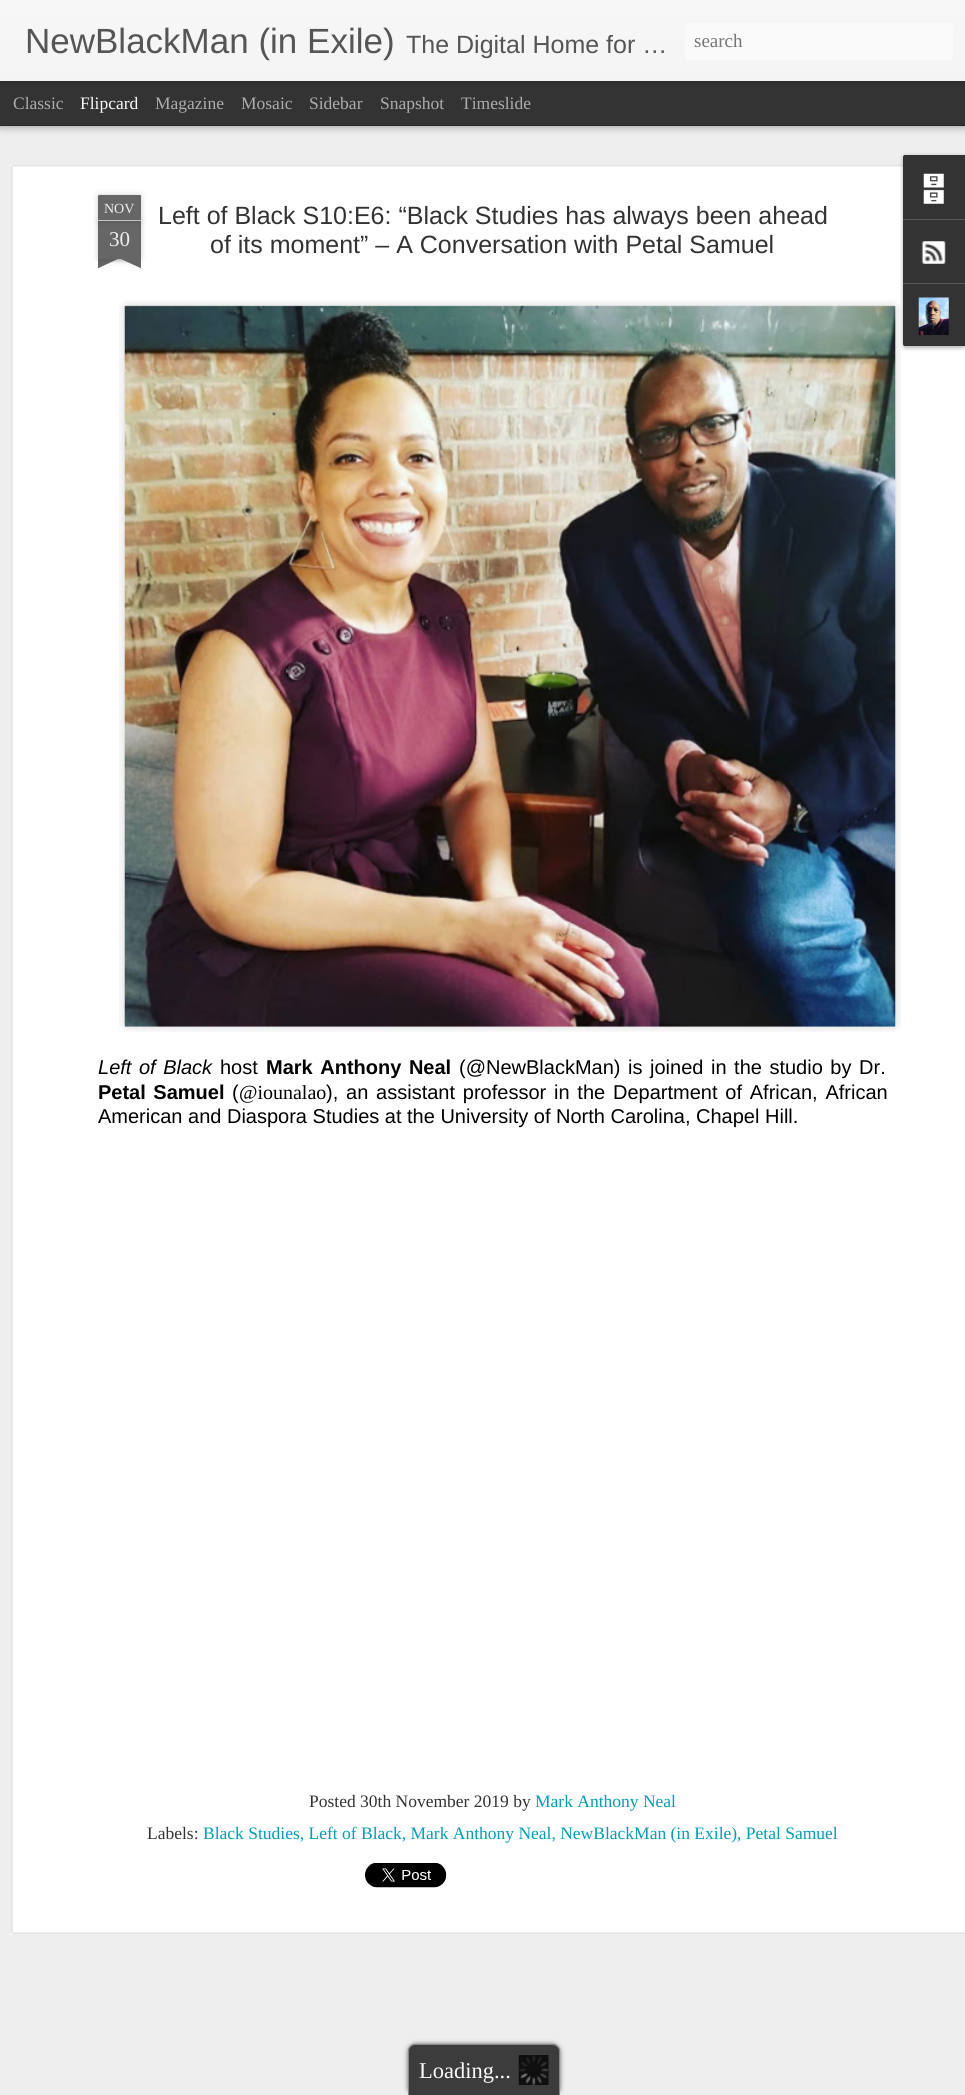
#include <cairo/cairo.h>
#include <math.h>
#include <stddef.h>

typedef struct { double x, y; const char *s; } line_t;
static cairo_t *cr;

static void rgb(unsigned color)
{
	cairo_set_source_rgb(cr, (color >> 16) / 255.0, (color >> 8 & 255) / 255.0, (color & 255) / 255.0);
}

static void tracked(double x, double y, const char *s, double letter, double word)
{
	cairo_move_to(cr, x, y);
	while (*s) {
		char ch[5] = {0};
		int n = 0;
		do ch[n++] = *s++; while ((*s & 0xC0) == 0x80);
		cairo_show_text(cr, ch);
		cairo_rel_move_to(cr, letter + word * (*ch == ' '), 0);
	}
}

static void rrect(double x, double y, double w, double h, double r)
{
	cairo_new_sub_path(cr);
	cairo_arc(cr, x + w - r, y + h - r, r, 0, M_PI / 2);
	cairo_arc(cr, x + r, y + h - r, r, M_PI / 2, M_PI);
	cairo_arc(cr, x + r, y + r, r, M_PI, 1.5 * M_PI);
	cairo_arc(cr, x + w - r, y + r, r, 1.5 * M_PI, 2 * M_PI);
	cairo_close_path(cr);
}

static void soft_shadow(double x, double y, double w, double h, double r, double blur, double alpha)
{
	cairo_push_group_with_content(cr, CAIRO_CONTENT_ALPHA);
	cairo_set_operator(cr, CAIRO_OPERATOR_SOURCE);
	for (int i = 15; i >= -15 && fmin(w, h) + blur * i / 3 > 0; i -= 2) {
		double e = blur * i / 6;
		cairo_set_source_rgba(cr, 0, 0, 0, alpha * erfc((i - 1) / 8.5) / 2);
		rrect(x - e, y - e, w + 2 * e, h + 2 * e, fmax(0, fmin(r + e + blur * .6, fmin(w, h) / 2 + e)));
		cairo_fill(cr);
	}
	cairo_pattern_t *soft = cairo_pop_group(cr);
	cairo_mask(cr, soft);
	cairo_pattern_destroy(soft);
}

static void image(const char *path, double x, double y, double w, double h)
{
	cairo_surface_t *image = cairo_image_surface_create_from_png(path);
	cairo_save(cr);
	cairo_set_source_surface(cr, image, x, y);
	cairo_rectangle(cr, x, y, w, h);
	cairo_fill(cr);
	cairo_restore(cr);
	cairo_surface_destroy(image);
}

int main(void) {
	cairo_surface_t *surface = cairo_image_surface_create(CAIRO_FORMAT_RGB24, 965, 2095);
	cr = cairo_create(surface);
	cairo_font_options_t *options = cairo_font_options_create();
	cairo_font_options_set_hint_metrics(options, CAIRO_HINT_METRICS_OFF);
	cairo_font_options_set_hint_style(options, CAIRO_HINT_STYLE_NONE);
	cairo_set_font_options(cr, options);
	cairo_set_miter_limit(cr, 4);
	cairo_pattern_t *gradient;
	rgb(0x333333);
	cairo_paint(cr);
	rgb(0xeeeeee);
	cairo_rectangle(cr, 0, 126, 965, 1969);
	cairo_fill(cr);
	rgb(0x000000);
	soft_shadow(0, 81, 965, 44, 0, 5, 0.5);
	rgb(0x333333);
	cairo_rectangle(cr, 0, 81, 965, 44);
	cairo_fill(cr);
	rgb(0x000000);
	soft_shadow(0, 0, 965, 81, 0, 3, 0.3);
	gradient = cairo_pattern_create_linear(0, 0, 0, 81);
	cairo_pattern_add_color_stop_rgba(gradient, 0, 0.969, 0.969, 0.969, 1);
	cairo_pattern_add_color_stop_rgba(gradient, 1, 0.957, 0.957, 0.957, 1);
	cairo_set_source(cr, gradient);
	cairo_pattern_destroy(gradient);
	cairo_rectangle(cr, 0, 0, 965, 81);
	cairo_fill(cr);
	rgb(0xfafafa);
	rrect(685, 23, 268, 37, 4);
	cairo_fill(cr);
	rgb(0xffffff);
	cairo_rectangle(cr, 10, 164, 955, 1771);
	cairo_fill(cr);
	image("img/1.png", 10, 164, 955, 1771);
	rgb(0x000000);
	soft_shadow(98, 221, 43, 38, 0, 3, 0.2);
	rgb(0x666666);
	cairo_rectangle(cr, 98, 221, 43, 38);
	cairo_fill(cr);
	rgb(0x000000);
	soft_shadow(98, 195, 43, 26, 1, 3, 0.2);
	rgb(0x666666);
	cairo_new_path(cr);
	cairo_move_to(cr, 99, 195);
	cairo_line_to(cr, 140, 195);
	cairo_curve_to(cr, 140.5, 195, 141, 195.5, 141, 196);
	cairo_line_to(cr, 141, 221);
	cairo_line_to(cr, 98, 221);
	cairo_line_to(cr, 98, 196);
	cairo_curve_to(cr, 98, 195.5, 98.5, 195, 99, 195);
	cairo_close_path(cr);
	cairo_fill(cr);
	rgb(0xc2c2c2);
	cairo_rectangle(cr, 98, 220, 43, 1);
	cairo_fill(cr);
	cairo_save(cr);
	cairo_rectangle(cr, 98, 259, 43, 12);
	cairo_clip(cr);
	rgb(0x000000);
	soft_shadow(86, 246, 63, 13, 0, 3, 0.2);
	cairo_restore(cr);
	cairo_save(cr);
	cairo_rectangle(cr, 98, 259, 43, 12);
	cairo_clip(cr);
	rgb(0x666666);
	cairo_new_path(cr);
	cairo_move_to(cr, 87, 260);
	cairo_line_to(cr, 143, 234);
	cairo_line_to(cr, 148, 245);
	cairo_line_to(cr, 92, 271);
	cairo_close_path(cr);
	cairo_fill(cr);
	cairo_restore(cr);
	cairo_save(cr);
	cairo_rectangle(cr, 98, 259, 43, 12);
	cairo_clip(cr);
	rgb(0x000000);
	soft_shadow(90, 246, 63, 13, 0, 3, 0.2);
	cairo_restore(cr);
	cairo_save(cr);
	cairo_rectangle(cr, 98, 259, 43, 12);
	cairo_clip(cr);
	rgb(0x666666);
	cairo_new_path(cr);
	cairo_move_to(cr, 96, 234);
	cairo_line_to(cr, 152, 260);
	cairo_line_to(cr, 147, 271);
	cairo_line_to(cr, 90, 245);
	cairo_close_path(cr);
	cairo_fill(cr);
	cairo_restore(cr);
	image("img/2.png", 119, 300, 782, 732);
	image("img/3.png", 124, 305, 772, 722);
	image("img/4.png", 365, 1863, 82, 25);
	rgb(0x000000);
	soft_shadow(903, 156, 62, 192, 2.5, 2, 0.3);
	rgb(0x333333);
	cairo_new_path(cr);
	cairo_move_to(cr, 905.5, 155);
	cairo_line_to(cr, 965, 155);
	cairo_line_to(cr, 965, 346);
	cairo_line_to(cr, 905.5, 346);
	cairo_curve_to(cr, 904, 346, 903, 345, 903, 343.5);
	cairo_line_to(cr, 903, 157.5);
	cairo_curve_to(cr, 903, 156, 904, 155, 905.5, 155);
	cairo_close_path(cr);
	cairo_fill(cr);
	cairo_new_path(cr);
	cairo_move_to(cr, 905.5, 155);
	cairo_line_to(cr, 965, 155);
	cairo_line_to(cr, 965, 219);
	cairo_line_to(cr, 903, 219);
	cairo_line_to(cr, 903, 157.5);
	cairo_curve_to(cr, 903, 156, 904, 155, 905.5, 155);
	cairo_close_path(cr);
	cairo_fill(cr);
	image("img/5.png", 923, 173, 21, 31);
	rgb(0x585858);
	cairo_rectangle(cr, 903, 219, 62, 1);
	cairo_fill(cr);
	image("img/6.png", 921, 241, 25, 23);
	rgb(0x333333);
	cairo_new_path(cr);
	cairo_move_to(cr, 903, 283);
	cairo_line_to(cr, 965, 283);
	cairo_line_to(cr, 965, 346);
	cairo_line_to(cr, 905.5, 346);
	cairo_curve_to(cr, 904, 346, 903, 345, 903, 343.5);
	cairo_close_path(cr);
	cairo_fill(cr);
	rgb(0x585858);
	cairo_rectangle(cr, 903, 283, 62, 1);
	cairo_fill(cr);
	image("img/7.png", 918, 297, 31, 38);
	rgb(0x626262);
	soft_shadow(408, 2044, 152, 51, 8, 2.5, 1);
	rgb(0x3c3c3c);
	cairo_new_path(cr);
	cairo_move_to(cr, 416, 2044);
	cairo_line_to(cr, 552, 2044);
	cairo_curve_to(cr, 556.5, 2044, 560, 2047.5, 560, 2052);
	cairo_line_to(cr, 560, 2095);
	cairo_line_to(cr, 408, 2095);
	cairo_line_to(cr, 408, 2052);
	cairo_curve_to(cr, 408, 2047.5, 411.5, 2044, 416, 2044);
	cairo_close_path(cr);
	cairo_fill(cr);
	rgb(0x888888);
	cairo_set_fill_rule(cr, CAIRO_FILL_RULE_EVEN_ODD);
	cairo_new_path(cr);
	cairo_move_to(cr, 415, 2044);
	cairo_line_to(cr, 552, 2044);
	cairo_curve_to(cr, 557, 2044, 560, 2047, 560, 2051);
	cairo_line_to(cr, 560, 2095);
	cairo_line_to(cr, 408, 2095);
	cairo_line_to(cr, 408, 2051);
	cairo_curve_to(cr, 408, 2047, 411, 2044, 415, 2044);
	cairo_close_path(cr);
	cairo_move_to(cr, 415, 2045);
	cairo_line_to(cr, 552, 2045);
	cairo_curve_to(cr, 556, 2045, 559, 2048, 559, 2051);
	cairo_line_to(cr, 559, 2095);
	cairo_line_to(cr, 409, 2095);
	cairo_line_to(cr, 409, 2051);
	cairo_curve_to(cr, 409, 2048, 412, 2045, 415, 2045);
	cairo_close_path(cr);
	cairo_fill(cr);
	image("img/8.png", 518, 2055, 31, 30);
	cairo_select_font_face(cr, "Liberation Sans", CAIRO_FONT_SLANT_NORMAL, CAIRO_FONT_WEIGHT_NORMAL);
	cairo_set_font_size(cr, 35);
	rgb(0x555555);
	cairo_move_to(cr, 25, 53);
	cairo_show_text(cr, "NewBlackMan (in Exile)");
	cairo_set_font_size(cr, 25);
	cairo_move_to(cr, 406, 53);
	cairo_show_text(cr, "The Digital Home for …");
	cairo_select_font_face(cr, "Liberation Serif", CAIRO_FONT_SLANT_NORMAL, CAIRO_FONT_WEIGHT_NORMAL);
	cairo_set_font_size(cr, 19);
	rgb(0x757575);
	cairo_move_to(cr, 694, 47);
	cairo_show_text(cr, "search");
	cairo_set_font_size(cr, 17.5);
	rgb(0xadadad);
	cairo_move_to(cr, 13, 109);
	cairo_show_text(cr, "Classic");
	rgb(0xfbfbfb);
	cairo_move_to(cr, 80, 109);
	cairo_show_text(cr, "Flipcard");
	rgb(0xadadad);
	{
		static const line_t items[] = {
			{155, 109, "Magazine"},
			{241, 109, "Mosaic"},
			{309, 109, "Sidebar"},
			{380, 109, "Snapshot"},
			{461, 109, "Timeslide"},
		};
		for (size_t i = 0; i < sizeof items / sizeof *items; i++) {
			cairo_move_to(cr, items[i].x, items[i].y);
			cairo_show_text(cr, items[i].s);
		}
	}
	cairo_set_font_size(cr, 14);
	rgb(0xeeeeee);
	cairo_move_to(cr, 104, 213);
	cairo_show_text(cr, "NOV");
	cairo_set_font_size(cr, 21);
	cairo_move_to(cr, 109, 246);
	cairo_show_text(cr, "30");
	cairo_select_font_face(cr, "Liberation Sans", CAIRO_FONT_SLANT_NORMAL, CAIRO_FONT_WEIGHT_NORMAL);
	cairo_set_font_size(cr, 25);
	rgb(0x333333);
	cairo_move_to(cr, 158, 224);
	cairo_show_text(cr, "Left of Black S10:E6: “Black Studies has always been ahead");
	cairo_move_to(cr, 210, 253);
	cairo_show_text(cr, "of its moment” – A Conversation with Petal Samuel");
	cairo_select_font_face(cr, "Liberation Sans", CAIRO_FONT_SLANT_ITALIC, CAIRO_FONT_WEIGHT_NORMAL);
	cairo_set_font_size(cr, 20);
	rgb(0x000000);
	tracked(98, 1074, "Left of Black", 0, 2);
	cairo_select_font_face(cr, "Liberation Sans", CAIRO_FONT_SLANT_NORMAL, CAIRO_FONT_WEIGHT_NORMAL);
	cairo_move_to(cr, 220, 1074);
	cairo_show_text(cr, "host");
	cairo_select_font_face(cr, "Liberation Sans", CAIRO_FONT_SLANT_NORMAL, CAIRO_FONT_WEIGHT_BOLD);
	tracked(266, 1074, "Mark Anthony Neal", 0, 2);
	cairo_select_font_face(cr, "Liberation Sans", CAIRO_FONT_SLANT_NORMAL, CAIRO_FONT_WEIGHT_NORMAL);
	tracked(459, 1074, "(@NewBlackMan) is joined in the studio by Dr.", 0, 2);
	cairo_select_font_face(cr, "Liberation Sans", CAIRO_FONT_SLANT_NORMAL, CAIRO_FONT_WEIGHT_BOLD);
	tracked(98, 1099, "Petal Samuel", 0, 2);
	cairo_select_font_face(cr, "Liberation Sans", CAIRO_FONT_SLANT_NORMAL, CAIRO_FONT_WEIGHT_NORMAL);
	cairo_move_to(cr, 232, 1099);
	cairo_show_text(cr, "(");
	cairo_select_font_face(cr, "Liberation Serif", CAIRO_FONT_SLANT_NORMAL, CAIRO_FONT_WEIGHT_NORMAL);
	cairo_move_to(cr, 239, 1099);
	cairo_show_text(cr, "@iounalao");
	cairo_select_font_face(cr, "Liberation Sans", CAIRO_FONT_SLANT_NORMAL, CAIRO_FONT_WEIGHT_NORMAL);
	tracked(326, 1099, "), an assistant professor in the Department of African, African", 0, 2.25);
	cairo_move_to(cr, 98, 1123);
	cairo_show_text(cr, "American and Diaspora Studies at the University of North Carolina, Chapel Hill.");
	cairo_select_font_face(cr, "Liberation Serif", CAIRO_FONT_SLANT_NORMAL, CAIRO_FONT_WEIGHT_NORMAL);
	cairo_set_font_size(cr, 17.5);
	rgb(0x333333);
	cairo_move_to(cr, 309, 1807);
	cairo_show_text(cr, "Posted 30th November 2019 by");
	rgb(0x009eb8);
	cairo_move_to(cr, 535, 1807);
	cairo_show_text(cr, "Mark Anthony Neal");
	rgb(0x333333);
	cairo_move_to(cr, 147, 1839);
	cairo_show_text(cr, "Labels:");
	rgb(0x009eb8);
	cairo_move_to(cr, 203, 1839);
	cairo_show_text(cr, "Black Studies, Left of Black, Mark Anthony Neal, NewBlackMan (in Exile), Petal Samuel");
	cairo_set_font_size(cr, 22.5);
	rgb(0xfbfbfb);
	cairo_move_to(cr, 419, 2078);
	cairo_show_text(cr, "Loading...");
	cairo_surface_write_to_png(surface, "page.png");
	cairo_font_options_destroy(options);
	cairo_destroy(cr);
	cairo_surface_destroy(surface);
	return 0;
}
